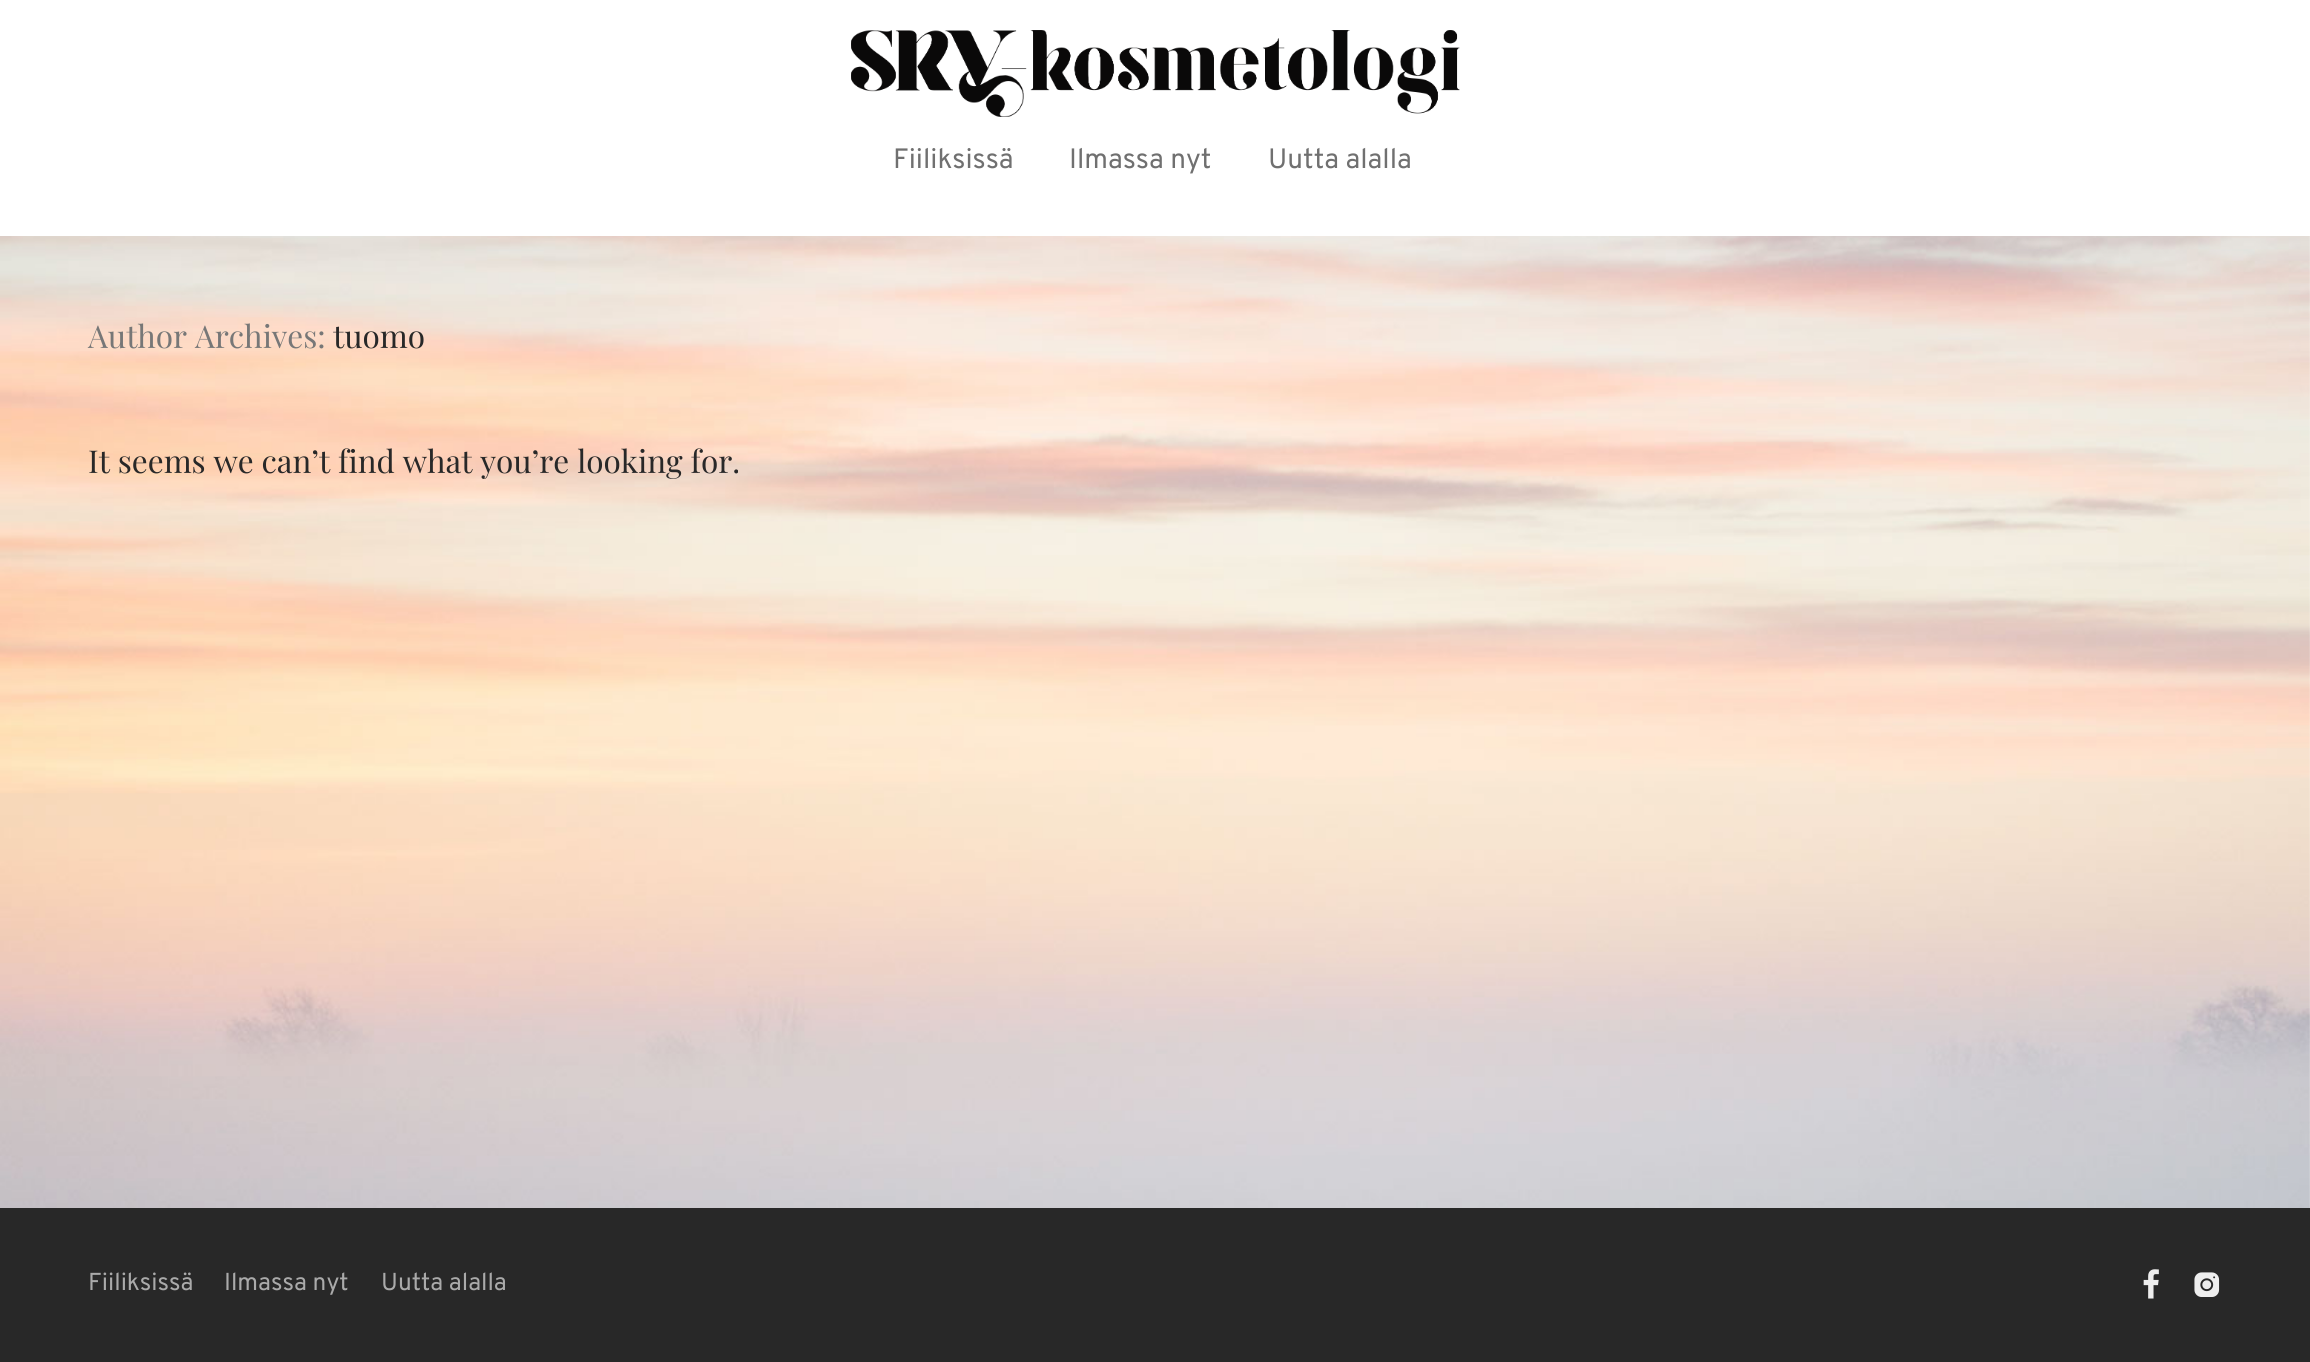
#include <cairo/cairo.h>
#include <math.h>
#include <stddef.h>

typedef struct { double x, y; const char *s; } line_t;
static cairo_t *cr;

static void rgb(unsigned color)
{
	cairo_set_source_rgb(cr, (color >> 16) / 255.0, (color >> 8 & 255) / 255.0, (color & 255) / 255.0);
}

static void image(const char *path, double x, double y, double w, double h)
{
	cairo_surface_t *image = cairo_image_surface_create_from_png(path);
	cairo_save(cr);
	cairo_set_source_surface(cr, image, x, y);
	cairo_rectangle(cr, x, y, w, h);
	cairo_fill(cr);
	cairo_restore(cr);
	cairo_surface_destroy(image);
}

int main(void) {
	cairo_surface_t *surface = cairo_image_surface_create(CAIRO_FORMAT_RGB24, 2310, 1362);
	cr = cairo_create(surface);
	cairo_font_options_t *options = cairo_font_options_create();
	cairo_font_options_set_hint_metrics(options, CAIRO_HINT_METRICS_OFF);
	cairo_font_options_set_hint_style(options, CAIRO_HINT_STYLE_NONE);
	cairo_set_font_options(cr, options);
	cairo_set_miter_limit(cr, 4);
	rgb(0xffffff);
	cairo_paint(cr);
	image("img/1.png", 0, 236, 2310, 972);
	image("img/2.png", 851, 30, 609, 87);
	rgb(0x282828);
	cairo_rectangle(cr, 0, 1208, 2310, 154);
	cairo_fill(cr);
	image("img/3.png", 2143, 1269, 16, 30);
	image("img/4.png", 2194, 1272, 26, 25);
	cairo_select_font_face(cr, "Overpass", CAIRO_FONT_SLANT_NORMAL, CAIRO_FONT_WEIGHT_NORMAL);
	cairo_set_font_size(cr, 28);
	rgb(0x707070);
	{
		static const line_t items[] = {
			{893, 168, "Fiiliksissä"},
			{1069, 168, "Ilmassa nyt"},
			{1268, 168, "Uutta alalla"},
		};
		for (size_t i = 0; i < sizeof items / sizeof *items; i++) {
			cairo_move_to(cr, items[i].x, items[i].y);
			cairo_show_text(cr, items[i].s);
		}
	}
	cairo_select_font_face(cr, "Playfair Display", CAIRO_FONT_SLANT_NORMAL, CAIRO_FONT_WEIGHT_NORMAL);
	cairo_set_font_size(cr, 31.5);
	rgb(0x777777);
	cairo_move_to(cr, 88, 348);
	cairo_show_text(cr, "Author Archives:");
	rgb(0x282828);
	cairo_move_to(cr, 333, 348);
	cairo_show_text(cr, "tuomo");
	cairo_move_to(cr, 88, 473);
	cairo_show_text(cr, "It seems we can’t find what you’re looking for.");
	cairo_select_font_face(cr, "Overpass", CAIRO_FONT_SLANT_NORMAL, CAIRO_FONT_WEIGHT_NORMAL);
	cairo_set_font_size(cr, 24.5);
	rgb(0xaaaaaa);
	{
		static const line_t items[] = {
			{88, 1290, "Fiiliksissä"},
			{224, 1290, "Ilmassa nyt"},
			{381, 1290, "Uutta alalla"},
		};
		for (size_t i = 0; i < sizeof items / sizeof *items; i++) {
			cairo_move_to(cr, items[i].x, items[i].y);
			cairo_show_text(cr, items[i].s);
		}
	}
	cairo_surface_write_to_png(surface, "page.png");
	cairo_font_options_destroy(options);
	cairo_destroy(cr);
	cairo_surface_destroy(surface);
	return 0;
}
